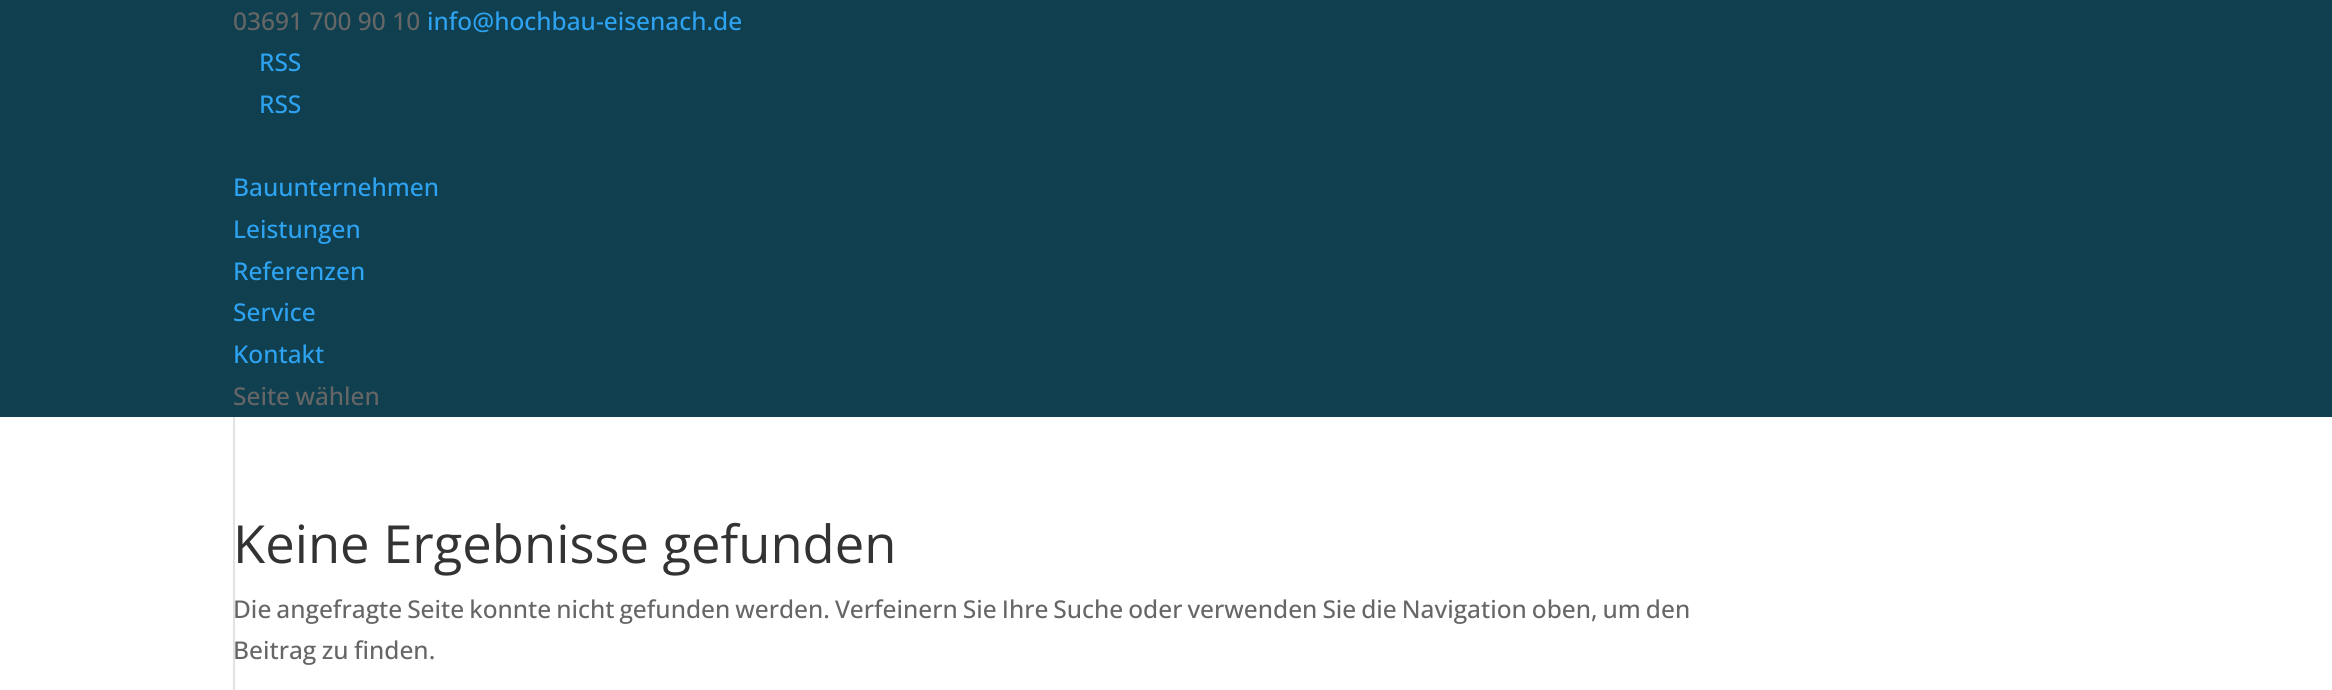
#include <cairo/cairo.h>
#include <math.h>
#include <stddef.h>

typedef struct { double x, y; const char *s; } line_t;
static cairo_t *cr;

static void rgb(unsigned color)
{
	cairo_set_source_rgb(cr, (color >> 16) / 255.0, (color >> 8 & 255) / 255.0, (color & 255) / 255.0);
}

static void tracked(double x, double y, const char *s, double letter, double word)
{
	cairo_move_to(cr, x, y);
	while (*s) {
		char ch[5] = {0};
		int n = 0;
		do ch[n++] = *s++; while ((*s & 0xC0) == 0x80);
		cairo_show_text(cr, ch);
		cairo_rel_move_to(cr, letter + word * (*ch == ' '), 0);
	}
}

int main(void) {
	cairo_surface_t *surface = cairo_image_surface_create(CAIRO_FORMAT_RGB24, 2332, 690);
	cr = cairo_create(surface);
	cairo_font_options_t *options = cairo_font_options_create();
	cairo_font_options_set_hint_metrics(options, CAIRO_HINT_METRICS_OFF);
	cairo_font_options_set_hint_style(options, CAIRO_HINT_STYLE_NONE);
	cairo_set_font_options(cr, options);
	cairo_set_miter_limit(cr, 4);
	rgb(0x104050);
	cairo_paint(cr);
	rgb(0xffffff);
	cairo_rectangle(cr, 0, 417, 2332, 273);
	cairo_fill(cr);
	rgb(0xe2e2e2);
	cairo_rectangle(cr, 233, 417, 2, 273);
	cairo_fill(cr);
	cairo_select_font_face(cr, "Open Sans Medium", CAIRO_FONT_SLANT_NORMAL, CAIRO_FONT_WEIGHT_NORMAL);
	cairo_set_font_size(cr, 24.5);
	rgb(0x666666);
	cairo_move_to(cr, 233, 30);
	cairo_show_text(cr, "03691 700 90 10");
	rgb(0x2ea3f2);
	{
		static const line_t items[] = {
			{427, 30, "info@hochbau-eisenach.de"},
			{259, 71, "RSS"},
			{259, 113, "RSS"},
			{233, 196, "Bauunternehmen"},
			{233, 238, "Leistungen"},
			{233, 280, "Referenzen"},
			{233, 321, "Service"},
			{233, 363, "Kontakt"},
		};
		for (size_t i = 0; i < sizeof items / sizeof *items; i++) {
			cairo_move_to(cr, items[i].x, items[i].y);
			cairo_show_text(cr, items[i].s);
		}
	}
	rgb(0x666666);
	tracked(233, 405, "Seite wählen", 0, -1);
	cairo_select_font_face(cr, "Open Sans", CAIRO_FONT_SLANT_NORMAL, CAIRO_FONT_WEIGHT_NORMAL);
	cairo_set_font_size(cr, 52.5);
	rgb(0x333333);
	cairo_move_to(cr, 233, 563);
	cairo_show_text(cr, "Keine Ergebnisse gefunden");
	cairo_select_font_face(cr, "Open Sans Medium", CAIRO_FONT_SLANT_NORMAL, CAIRO_FONT_WEIGHT_NORMAL);
	cairo_set_font_size(cr, 24.5);
	rgb(0x666666);
	tracked(233, 618, "Die angefragte Seite konnte nicht gefunden werden. Verfeinern Sie Ihre Suche oder verwenden Sie die Navigation oben, um den", 0, -1.4);
	tracked(233, 659, "Beitrag zu finden.", 0, -1);
	cairo_surface_write_to_png(surface, "page.png");
	cairo_font_options_destroy(options);
	cairo_destroy(cr);
	cairo_surface_destroy(surface);
	return 0;
}
